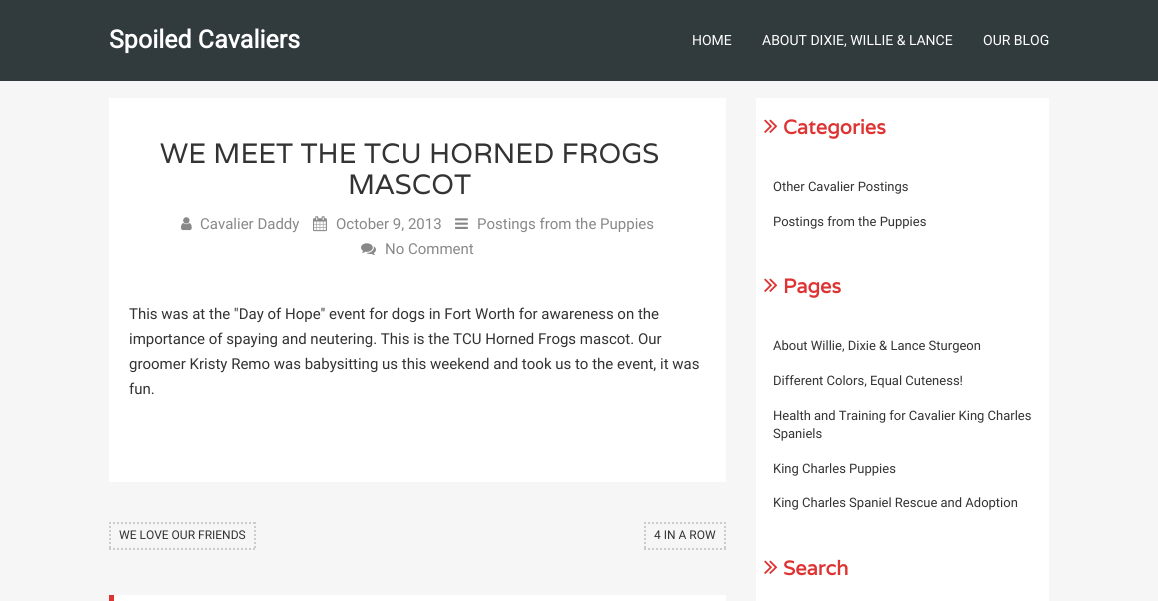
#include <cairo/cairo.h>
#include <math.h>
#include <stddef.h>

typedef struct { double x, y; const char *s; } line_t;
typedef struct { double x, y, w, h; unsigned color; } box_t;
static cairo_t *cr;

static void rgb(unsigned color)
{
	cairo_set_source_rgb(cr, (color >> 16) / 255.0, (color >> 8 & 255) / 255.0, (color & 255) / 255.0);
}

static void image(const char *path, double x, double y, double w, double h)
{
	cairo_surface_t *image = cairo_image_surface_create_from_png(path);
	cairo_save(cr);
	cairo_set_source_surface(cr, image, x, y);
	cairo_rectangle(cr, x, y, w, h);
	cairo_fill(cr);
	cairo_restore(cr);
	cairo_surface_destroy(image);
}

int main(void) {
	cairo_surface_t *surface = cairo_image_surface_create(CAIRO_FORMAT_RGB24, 1158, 601);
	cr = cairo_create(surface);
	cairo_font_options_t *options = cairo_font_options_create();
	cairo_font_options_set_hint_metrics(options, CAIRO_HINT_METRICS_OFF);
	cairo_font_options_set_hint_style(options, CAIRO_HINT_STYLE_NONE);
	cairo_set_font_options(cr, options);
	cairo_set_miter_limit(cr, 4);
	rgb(0xf6f6f6);
	cairo_paint(cr);
	rgb(0x313b3d);
	cairo_rectangle(cr, 0, 0, 1158, 81);
	cairo_fill(cr);
	rgb(0xffffff);
	cairo_rectangle(cr, 109, 98, 617, 384);
	cairo_fill(cr);
	image("img/1.png", 181, 217, 11, 14);
	image("img/2.png", 313, 216, 14, 16);
	image("img/3.png", 455, 218, 13, 11);
	image("img/4.png", 361, 243, 15, 12);
	cairo_new_path(cr);
	cairo_move_to(cr, 109, 523);
	cairo_line_to(cr, 256, 523);
	rgb(0xcccccc);
	cairo_set_dash(cr, (double[]){2, 2}, 2, 0);
	cairo_stroke(cr);
	cairo_new_path(cr);
	cairo_move_to(cr, 255, 522);
	cairo_line_to(cr, 255, 550);
	cairo_stroke(cr);
	cairo_new_path(cr);
	cairo_move_to(cr, 109, 549);
	cairo_line_to(cr, 256, 549);
	cairo_stroke(cr);
	cairo_new_path(cr);
	cairo_move_to(cr, 110, 522);
	cairo_line_to(cr, 110, 550);
	cairo_stroke(cr);
	cairo_new_path(cr);
	cairo_move_to(cr, 644, 523);
	cairo_line_to(cr, 726, 523);
	cairo_stroke(cr);
	cairo_new_path(cr);
	cairo_move_to(cr, 725, 522);
	cairo_line_to(cr, 725, 550);
	cairo_stroke(cr);
	cairo_new_path(cr);
	cairo_move_to(cr, 644, 549);
	cairo_line_to(cr, 726, 549);
	cairo_stroke(cr);
	cairo_new_path(cr);
	cairo_move_to(cr, 645, 522);
	cairo_line_to(cr, 645, 550);
	cairo_stroke(cr);
	{
		static const box_t items[] = {
			{109, 595, 617, 6, 0xffffff},
			{109, 595, 5, 6, 0xdd3333},
			{756, 98, 293, 503, 0xffffff},
		};
		for (size_t i = 0; i < sizeof items / sizeof *items; i++) {
			rgb(items[i].color);
			cairo_rectangle(cr, items[i].x, items[i].y, items[i].w, items[i].h);
			cairo_fill(cr);
		}
	}
	image("img/5.png", 764, 119, 14, 14);
	image("img/5.png", 764, 278, 14, 14);
	image("img/5.png", 764, 560, 14, 14);
	cairo_select_font_face(cr, "Roboto", CAIRO_FONT_SLANT_NORMAL, CAIRO_FONT_WEIGHT_BOLD);
	cairo_set_font_size(cr, 25);
	cairo_move_to(cr, 109, 48);
	cairo_show_text(cr, "Spoiled Cavaliers");
	cairo_select_font_face(cr, "Roboto", CAIRO_FONT_SLANT_NORMAL, CAIRO_FONT_WEIGHT_NORMAL);
	cairo_set_font_size(cr, 14);
	{
		static const line_t items[] = {
			{692, 45, "HOME"},
			{762, 45, "ABOUT DIXIE, WILLIE & LANCE"},
			{983, 45, "OUR BLOG"},
		};
		for (size_t i = 0; i < sizeof items / sizeof *items; i++) {
			cairo_move_to(cr, items[i].x, items[i].y);
			cairo_show_text(cr, items[i].s);
		}
	}
	cairo_select_font_face(cr, "Varela", CAIRO_FONT_SLANT_NORMAL, CAIRO_FONT_WEIGHT_NORMAL);
	cairo_set_font_size(cr, 28);
	rgb(0x333333);
	cairo_move_to(cr, 160, 163);
	cairo_show_text(cr, "WE MEET THE TCU HORNED FROGS");
	cairo_move_to(cr, 348, 194);
	cairo_show_text(cr, "MASCOT");
	cairo_select_font_face(cr, "Roboto", CAIRO_FONT_SLANT_NORMAL, CAIRO_FONT_WEIGHT_NORMAL);
	cairo_set_font_size(cr, 15);
	rgb(0x888888);
	{
		static const line_t items[] = {
			{200, 229, "Cavalier Daddy"},
			{336, 229, "October 9, 2013"},
			{477, 229, "Postings from the Puppies"},
			{385, 254, "No Comment"},
		};
		for (size_t i = 0; i < sizeof items / sizeof *items; i++) {
			cairo_move_to(cr, items[i].x, items[i].y);
			cairo_show_text(cr, items[i].s);
		}
	}
	rgb(0x333333);
	{
		static const line_t items[] = {
			{129, 319, "This was at the \"Day of Hope\" event for dogs in Fort Worth for awareness on the"},
			{129, 344, "importance of spaying and neutering. This is the TCU Horned Frogs mascot. Our"},
			{129, 369, "groomer Kristy Remo was babysitting us this weekend and took us to the event, it was"},
			{129, 394, "fun."},
		};
		for (size_t i = 0; i < sizeof items / sizeof *items; i++) {
			cairo_move_to(cr, items[i].x, items[i].y);
			cairo_show_text(cr, items[i].s);
		}
	}
	cairo_set_font_size(cr, 12);
	cairo_move_to(cr, 119, 539);
	cairo_show_text(cr, "WE LOVE OUR FRIENDS");
	cairo_move_to(cr, 654, 539);
	cairo_show_text(cr, "4 IN A ROW");
	cairo_select_font_face(cr, "Varela", CAIRO_FONT_SLANT_NORMAL, CAIRO_FONT_WEIGHT_BOLD);
	cairo_set_font_size(cr, 20);
	rgb(0xdd3333);
	cairo_move_to(cr, 783, 134);
	cairo_show_text(cr, "Categories");
	cairo_select_font_face(cr, "Roboto", CAIRO_FONT_SLANT_NORMAL, CAIRO_FONT_WEIGHT_NORMAL);
	cairo_set_font_size(cr, 13);
	rgb(0x333333);
	cairo_move_to(cr, 773, 191);
	cairo_show_text(cr, "Other Cavalier Postings");
	cairo_move_to(cr, 773, 226);
	cairo_show_text(cr, "Postings from the Puppies");
	cairo_select_font_face(cr, "Varela", CAIRO_FONT_SLANT_NORMAL, CAIRO_FONT_WEIGHT_BOLD);
	cairo_set_font_size(cr, 20);
	rgb(0xdd3333);
	cairo_move_to(cr, 783, 293);
	cairo_show_text(cr, "Pages");
	cairo_select_font_face(cr, "Roboto", CAIRO_FONT_SLANT_NORMAL, CAIRO_FONT_WEIGHT_NORMAL);
	cairo_set_font_size(cr, 13);
	rgb(0x333333);
	{
		static const line_t items[] = {
			{773, 350, "About Willie, Dixie & Lance Sturgeon"},
			{773, 385, "Different Colors, Equal Cuteness!"},
			{773, 420, "Health and Training for Cavalier King Charles"},
			{773, 438, "Spaniels"},
			{773, 473, "King Charles Puppies"},
			{773, 507, "King Charles Spaniel Rescue and Adoption"},
		};
		for (size_t i = 0; i < sizeof items / sizeof *items; i++) {
			cairo_move_to(cr, items[i].x, items[i].y);
			cairo_show_text(cr, items[i].s);
		}
	}
	cairo_select_font_face(cr, "Varela", CAIRO_FONT_SLANT_NORMAL, CAIRO_FONT_WEIGHT_BOLD);
	cairo_set_font_size(cr, 20);
	rgb(0xdd3333);
	cairo_move_to(cr, 783, 575);
	cairo_show_text(cr, "Search");
	cairo_surface_write_to_png(surface, "page.png");
	cairo_font_options_destroy(options);
	cairo_destroy(cr);
	cairo_surface_destroy(surface);
	return 0;
}
